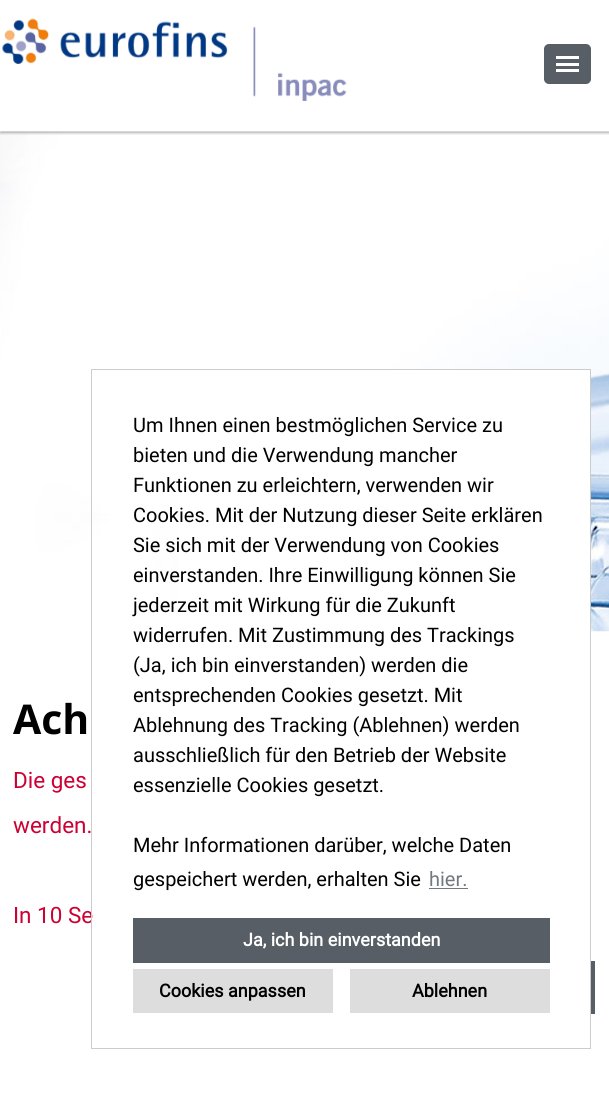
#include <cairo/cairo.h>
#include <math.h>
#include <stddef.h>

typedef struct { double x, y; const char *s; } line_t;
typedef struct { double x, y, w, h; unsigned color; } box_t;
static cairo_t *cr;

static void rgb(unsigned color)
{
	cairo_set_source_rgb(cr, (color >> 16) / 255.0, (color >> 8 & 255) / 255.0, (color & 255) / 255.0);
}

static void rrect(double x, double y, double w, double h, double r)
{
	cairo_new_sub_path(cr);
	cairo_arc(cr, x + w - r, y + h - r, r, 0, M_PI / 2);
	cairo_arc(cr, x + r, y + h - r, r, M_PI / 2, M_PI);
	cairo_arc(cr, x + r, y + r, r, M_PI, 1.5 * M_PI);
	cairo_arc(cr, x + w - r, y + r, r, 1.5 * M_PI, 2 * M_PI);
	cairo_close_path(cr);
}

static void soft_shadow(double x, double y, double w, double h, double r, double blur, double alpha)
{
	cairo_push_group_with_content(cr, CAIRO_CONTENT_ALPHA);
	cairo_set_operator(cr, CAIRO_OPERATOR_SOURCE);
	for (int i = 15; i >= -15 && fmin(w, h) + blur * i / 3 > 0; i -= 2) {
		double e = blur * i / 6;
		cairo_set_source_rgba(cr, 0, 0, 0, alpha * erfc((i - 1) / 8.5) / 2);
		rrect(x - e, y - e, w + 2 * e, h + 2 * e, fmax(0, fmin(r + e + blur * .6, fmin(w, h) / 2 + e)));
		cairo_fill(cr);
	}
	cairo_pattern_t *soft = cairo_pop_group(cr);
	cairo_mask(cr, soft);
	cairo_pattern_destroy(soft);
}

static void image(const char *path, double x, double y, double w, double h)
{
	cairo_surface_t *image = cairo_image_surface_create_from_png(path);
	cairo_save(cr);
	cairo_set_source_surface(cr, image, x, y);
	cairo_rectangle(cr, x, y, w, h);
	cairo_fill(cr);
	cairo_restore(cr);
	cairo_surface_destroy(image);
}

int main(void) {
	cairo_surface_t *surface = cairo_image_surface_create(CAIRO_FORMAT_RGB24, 609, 1105);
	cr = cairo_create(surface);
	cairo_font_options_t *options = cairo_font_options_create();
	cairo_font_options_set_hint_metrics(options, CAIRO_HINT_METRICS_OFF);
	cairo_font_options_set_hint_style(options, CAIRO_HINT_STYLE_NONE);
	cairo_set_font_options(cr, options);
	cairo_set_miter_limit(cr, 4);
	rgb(0xffffff);
	cairo_paint(cr);
	image("img/2.png", 0, 131, 609, 501);
	cairo_rectangle(cr, -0.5, -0.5, 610, 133);
	cairo_set_source_rgba(cr, 0, 0, 0, 0.08);
	cairo_set_line_width(cr, 1);
	cairo_stroke(cr);
	cairo_save(cr);
	cairo_rectangle(cr, 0, 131, 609, 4);
	cairo_clip(cr);
	rgb(0x000000);
	soft_shadow(0, 3, 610, 131, 0, 1, 0.16);
	cairo_restore(cr);
	image("img/1.png", 2, 18, 345, 83);
	rgb(0x575e65);
	rrect(544, 44, 47, 40, 5);
	cairo_fill(cr);
	{
		static const box_t items[] = {
			{556, 56, 23, 3, 0xffffff},
			{556, 63, 23, 3, 0xffffff},
			{556, 69, 23, 3, 0xffffff},
			{591, 961, 4, 53, 0x575e65},
			{179, 370, 411, 262, 0xffffff},
		};
		for (size_t i = 0; i < sizeof items / sizeof *items; i++) {
			rgb(items[i].color);
			cairo_rectangle(cr, items[i].x, items[i].y, items[i].w, items[i].h);
			cairo_fill(cr);
		}
	}
	cairo_select_font_face(cr, "Open Sans", CAIRO_FONT_SLANT_NORMAL, CAIRO_FONT_WEIGHT_BOLD);
	cairo_set_font_size(cr, 41);
	rgb(0x000000);
	cairo_move_to(cr, 13, 734);
	cairo_show_text(cr, "Ach");
	cairo_select_font_face(cr, "Roboto", CAIRO_FONT_SLANT_NORMAL, CAIRO_FONT_WEIGHT_NORMAL);
	cairo_set_font_size(cr, 22.5);
	rgb(0xcc0033);
	{
		static const line_t items[] = {
			{13, 788, "Die ges"},
			{13, 833, "werden."},
			{13, 923, "In 10 Se"},
		};
		for (size_t i = 0; i < sizeof items / sizeof *items; i++) {
			cairo_move_to(cr, items[i].x, items[i].y);
			cairo_show_text(cr, items[i].s);
		}
	}
	cairo_rectangle(cr, 91.5, 369.5, 499, 679);
	rgb(0xcccccc);
	cairo_stroke(cr);
	cairo_set_font_size(cr, 20);
	rgb(0x000000);
	{
		static const line_t items[] = {
			{133, 432, "Um Ihnen einen bestmöglichen Service zu"},
			{133, 462, "bieten und die Verwendung mancher"},
			{133, 492, "Funktionen zu erleichtern, verwenden wir"},
			{133, 522, "Cookies. Mit der Nutzung dieser Seite erklären"},
			{133, 552, "Sie sich mit der Verwendung von Cookies"},
			{133, 582, "einverstanden. Ihre Einwilligung können Sie"},
			{133, 612, "jederzeit mit Wirkung für die Zukunft"},
			{133, 642, "widerrufen. Mit Zustimmung des Trackings"},
			{133, 672, "(Ja, ich bin einverstanden) werden die"},
			{133, 702, "entsprechenden Cookies gesetzt. Mit"},
			{133, 732, "Ablehnung des Tracking (Ablehnen) werden"},
			{133, 762, "ausschließlich für den Betrieb der Website"},
			{133, 792, "essenzielle Cookies gesetzt."},
			{133, 852, "Mehr Informationen darüber, welche Daten"},
			{133, 886, "gespeichert werden, erhalten Sie"},
		};
		for (size_t i = 0; i < sizeof items / sizeof *items; i++) {
			cairo_move_to(cr, items[i].x, items[i].y);
			cairo_show_text(cr, items[i].s);
		}
	}
	rgb(0x6f797f);
	cairo_move_to(cr, 429, 886);
	cairo_show_text(cr, "hier.");
	cairo_rectangle(cr, 429, 888, 39, 1);
	cairo_fill(cr);
	rgb(0x575e65);
	cairo_rectangle(cr, 133, 918, 417, 45);
	cairo_fill(cr);
	cairo_select_font_face(cr, "Roboto", CAIRO_FONT_SLANT_NORMAL, CAIRO_FONT_WEIGHT_BOLD);
	cairo_set_font_size(cr, 18);
	rgb(0xffffff);
	cairo_move_to(cr, 243, 946);
	cairo_show_text(cr, "Ja, ich bin einverstanden");
	rgb(0xdddddd);
	cairo_rectangle(cr, 133, 969, 200, 44);
	cairo_fill(cr);
	rgb(0x000000);
	cairo_move_to(cr, 159, 997);
	cairo_show_text(cr, "Cookies anpassen");
	rgb(0xdddddd);
	cairo_rectangle(cr, 350, 969, 200, 44);
	cairo_fill(cr);
	rgb(0x000000);
	cairo_move_to(cr, 412, 997);
	cairo_show_text(cr, "Ablehnen");
	cairo_surface_write_to_png(surface, "page.png");
	cairo_font_options_destroy(options);
	cairo_destroy(cr);
	cairo_surface_destroy(surface);
	return 0;
}
